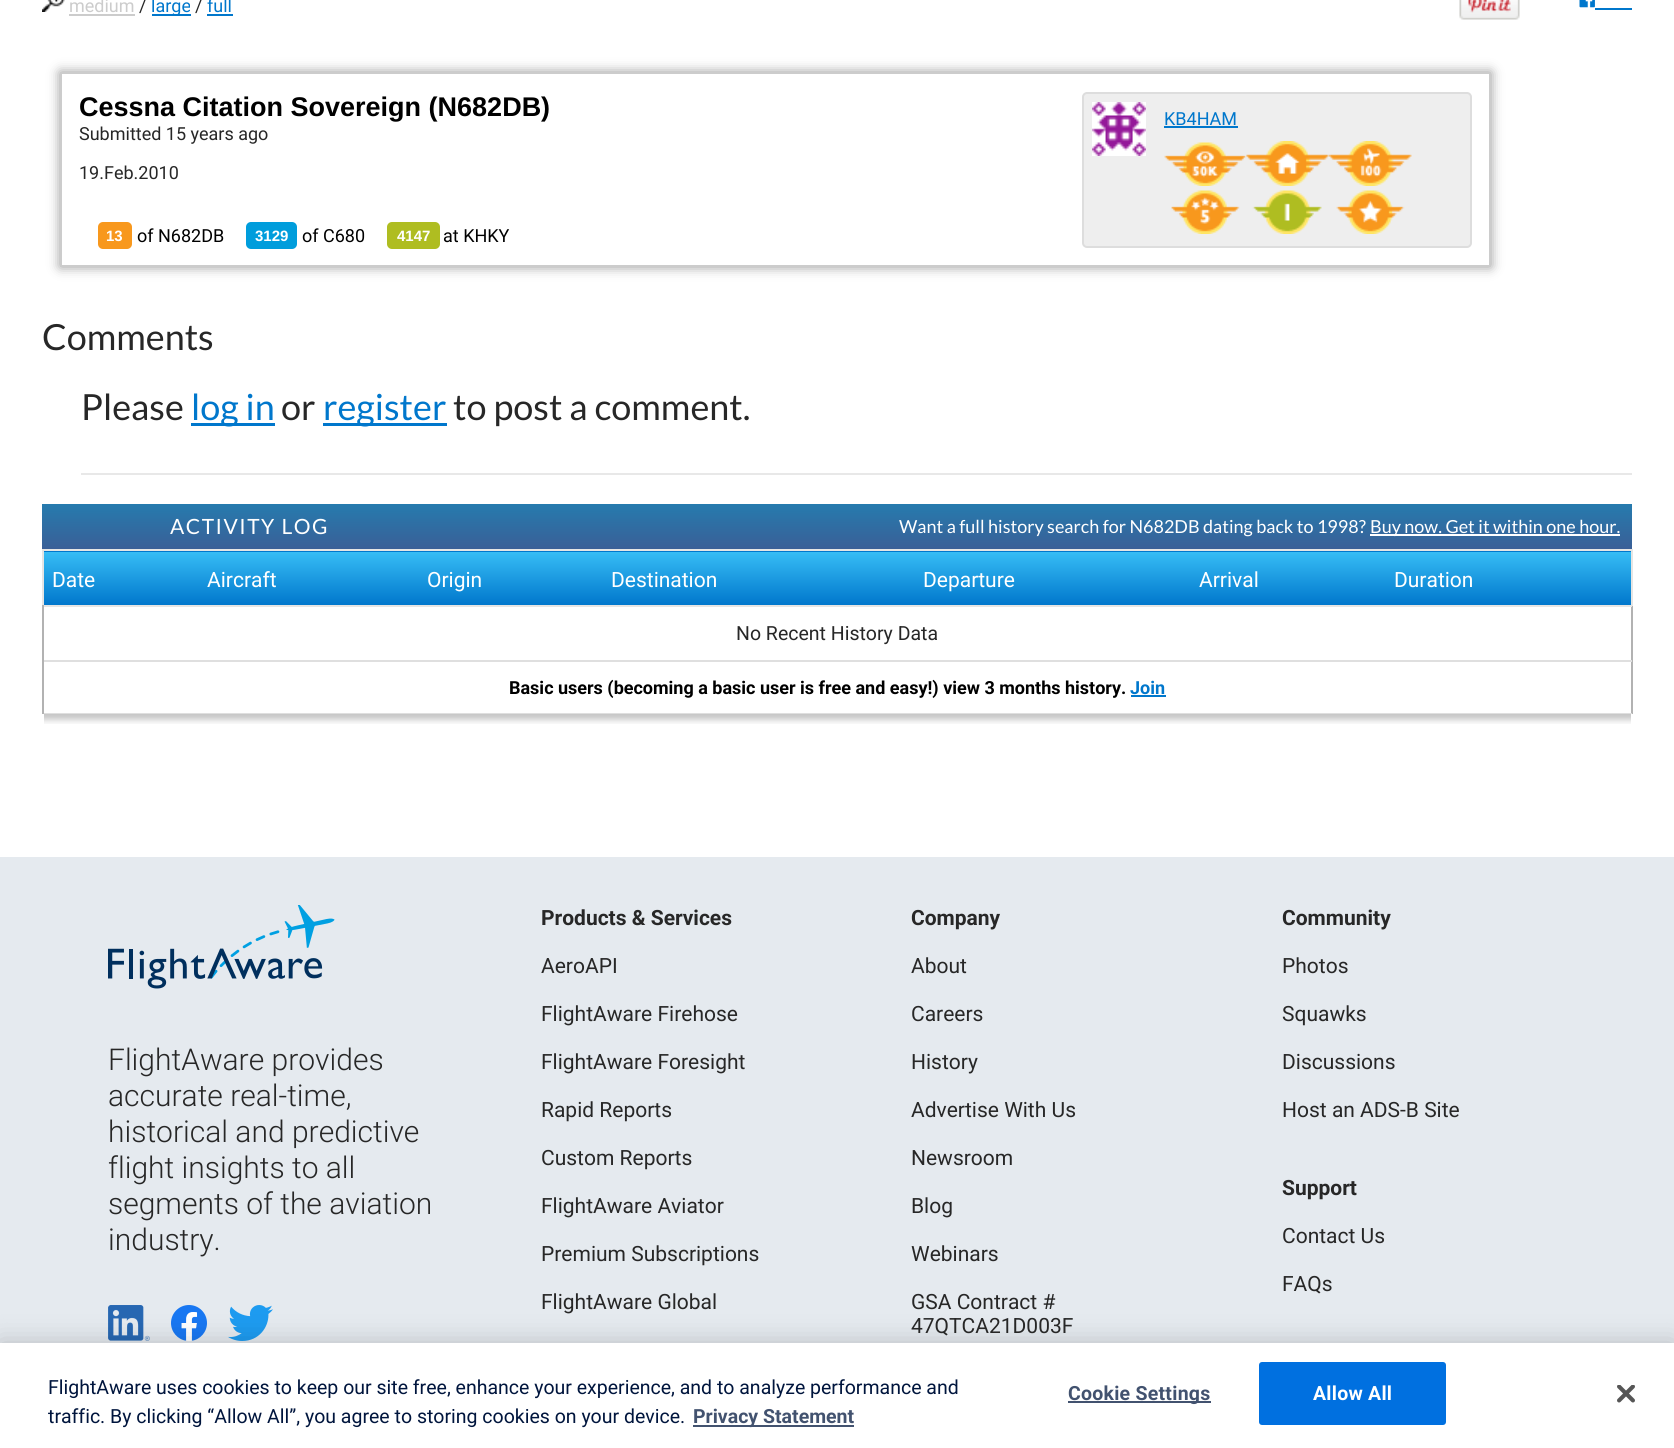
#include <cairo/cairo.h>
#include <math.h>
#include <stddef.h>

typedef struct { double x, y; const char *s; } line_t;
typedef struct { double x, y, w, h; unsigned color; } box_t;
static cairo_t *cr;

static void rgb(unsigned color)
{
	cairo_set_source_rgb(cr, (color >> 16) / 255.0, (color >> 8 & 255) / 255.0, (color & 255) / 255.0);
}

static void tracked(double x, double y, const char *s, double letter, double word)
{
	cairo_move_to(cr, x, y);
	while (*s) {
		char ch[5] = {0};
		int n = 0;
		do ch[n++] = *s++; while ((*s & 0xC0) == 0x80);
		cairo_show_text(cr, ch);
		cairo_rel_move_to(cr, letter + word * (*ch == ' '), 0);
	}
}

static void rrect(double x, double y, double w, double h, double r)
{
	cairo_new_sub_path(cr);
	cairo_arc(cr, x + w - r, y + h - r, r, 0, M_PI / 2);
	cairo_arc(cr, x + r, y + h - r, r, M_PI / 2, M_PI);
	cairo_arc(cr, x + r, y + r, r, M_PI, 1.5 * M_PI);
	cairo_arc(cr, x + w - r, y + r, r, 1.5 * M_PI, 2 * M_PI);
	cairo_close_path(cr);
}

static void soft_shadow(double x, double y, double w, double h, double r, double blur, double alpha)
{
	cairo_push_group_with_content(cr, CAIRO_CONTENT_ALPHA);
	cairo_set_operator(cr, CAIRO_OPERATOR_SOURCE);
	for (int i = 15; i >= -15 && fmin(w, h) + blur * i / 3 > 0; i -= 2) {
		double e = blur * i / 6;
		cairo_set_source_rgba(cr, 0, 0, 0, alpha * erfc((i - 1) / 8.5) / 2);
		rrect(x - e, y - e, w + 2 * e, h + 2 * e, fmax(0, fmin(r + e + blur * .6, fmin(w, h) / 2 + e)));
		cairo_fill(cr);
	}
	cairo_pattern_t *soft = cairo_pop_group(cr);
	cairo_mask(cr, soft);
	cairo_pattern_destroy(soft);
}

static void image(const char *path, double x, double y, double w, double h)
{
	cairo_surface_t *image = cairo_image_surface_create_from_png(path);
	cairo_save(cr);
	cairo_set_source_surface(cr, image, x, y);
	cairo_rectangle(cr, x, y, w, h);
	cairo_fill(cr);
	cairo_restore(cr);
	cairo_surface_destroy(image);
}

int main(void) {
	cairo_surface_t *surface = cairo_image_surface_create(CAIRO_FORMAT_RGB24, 1674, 1448);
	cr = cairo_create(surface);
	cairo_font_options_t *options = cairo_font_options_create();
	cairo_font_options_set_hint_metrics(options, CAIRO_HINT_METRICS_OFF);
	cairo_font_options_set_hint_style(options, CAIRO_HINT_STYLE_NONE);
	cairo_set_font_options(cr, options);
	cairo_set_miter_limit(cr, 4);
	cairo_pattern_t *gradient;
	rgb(0xffffff);
	cairo_paint(cr);
	image("img/1.png", 42, 0, 23, 12);
	{
		static const box_t items[] = {
			{69, 14, 66, 2, 0xcccccc},
			{152, 14, 39, 2, 0x0077cc},
			{207, 14, 26, 2, 0x0077cc},
		};
		for (size_t i = 0; i < sizeof items / sizeof *items; i++) {
			rgb(items[i].color);
			cairo_rectangle(cr, items[i].x, items[i].y, items[i].w, items[i].h);
			cairo_fill(cr);
		}
	}
	image("img/2.png", 1459, 0, 61, 20);
	image("img/3.png", 1579, 0, 16, 8);
	cairo_rectangle(cr, 1595, 8, 37, 2);
	cairo_fill(cr);
	cairo_save(cr);
	cairo_set_fill_rule(cr, CAIRO_FILL_RULE_EVEN_ODD);
	cairo_new_path(cr);
	cairo_move_to(cr, 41, 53);
	cairo_line_to(cr, 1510, 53);
	cairo_line_to(cr, 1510, 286);
	cairo_line_to(cr, 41, 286);
	cairo_close_path(cr);
	cairo_move_to(cr, 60, 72);
	cairo_line_to(cr, 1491, 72);
	cairo_line_to(cr, 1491, 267);
	cairo_line_to(cr, 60, 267);
	cairo_close_path(cr);
	cairo_clip(cr);
	rgb(0x999999);
	soft_shadow(60, 72, 1431, 195, 0, 6, 1);
	cairo_restore(cr);
	cairo_rectangle(cr, 61, 73, 1429, 193);
	rgb(0xcccccc);
	cairo_stroke(cr);
	rgb(0xf8981d);
	rrect(98, 222, 34, 27, 5);
	cairo_fill(cr);
	rgb(0x009ddc);
	rrect(246, 222, 51, 27, 5);
	cairo_fill(cr);
	rgb(0xafbd21);
	rrect(387, 222, 53, 27, 5);
	cairo_fill(cr);
	rgb(0xeeeeee);
	rrect(1083, 93, 388, 154, 4);
	cairo_fill_preserve(cr);
	rgb(0xdddddd);
	cairo_stroke(cr);
	image("img/4.png", 1092, 102, 54, 54);
	rgb(0x0077cc);
	cairo_rectangle(cr, 1164, 126, 74, 2);
	cairo_fill(cr);
	image("img/5.png", 1164, 142, 83, 44);
	image("img/6.png", 1246, 141, 83, 45);
	image("img/7.png", 1329, 141, 83, 45);
	image("img/8.png", 1171, 190, 69, 44);
	image("img/9.png", 1252, 190, 70, 44);
	image("img/10.png", 1336, 190, 69, 44);
	{
		static const box_t items[] = {
			{81, 473, 1551, 2, 0xe8e8e8},
			{191, 423, 84, 3, 0x0077cc},
			{323, 423, 124, 3, 0x0077cc},
		};
		for (size_t i = 0; i < sizeof items / sizeof *items; i++) {
			rgb(items[i].color);
			cairo_rectangle(cr, items[i].x, items[i].y, items[i].w, items[i].h);
			cairo_fill(cr);
		}
	}
	gradient = cairo_pattern_create_linear(42, 504, 42, 549);
	cairo_pattern_add_color_stop_rgba(gradient, 0, 0.149, 0.482, 0.682, 1);
	cairo_pattern_add_color_stop_rgba(gradient, 1, 0.227, 0.373, 0.592, 1);
	cairo_set_source(cr, gradient);
	cairo_pattern_destroy(gradient);
	cairo_rectangle(cr, 42, 504, 1590, 45);
	cairo_fill(cr);
	rgb(0xffffff);
	cairo_rectangle(cr, 1370, 534, 250, 2);
	cairo_fill(cr);
	rgb(0xb2b2b2);
	cairo_rectangle(cr, 1631, 606, 2, 108);
	cairo_fill(cr);
	gradient = cairo_pattern_create_linear(44, 500, 44, 552);
	cairo_pattern_add_color_stop_rgba(gradient, 0, 0.216, 0.741, 0.961, 1);
	cairo_pattern_add_color_stop_rgba(gradient, 1, 0, 0.467, 0.8, 1);
	cairo_set_source(cr, gradient);
	cairo_pattern_destroy(gradient);
	cairo_rectangle(cr, 42, 551, 1590, 1);
	cairo_fill(cr);
	gradient = cairo_pattern_create_linear(44, 552, 44, 605);
	cairo_pattern_add_color_stop_rgba(gradient, 0, 0.216, 0.741, 0.961, 1);
	cairo_pattern_add_color_stop_rgba(gradient, 1, 0, 0.467, 0.8, 1);
	cairo_set_source(cr, gradient);
	cairo_pattern_destroy(gradient);
	cairo_rectangle(cr, 44, 552, 1587, 53);
	cairo_fill(cr);
	{
		static const box_t items[] = {
			{42, 549, 1590, 2, 0xe5e5e4},
			{1631, 549, 2, 57, 0xe5e5e4},
			{42, 605, 1590, 2, 0xe5e5e4},
			{42, 549, 2, 57, 0xe5e5e4},
			{42, 660, 1590, 2, 0xdfdfdf},
			{42, 713, 1590, 1, 0xdfdfdf},
			{42, 605, 2, 109, 0xb2b2b2},
			{1131, 695, 35, 2, 0x0077cc},
		};
		for (size_t i = 0; i < sizeof items / sizeof *items; i++) {
			rgb(items[i].color);
			cairo_rectangle(cr, items[i].x, items[i].y, items[i].w, items[i].h);
			cairo_fill(cr);
		}
	}
	image("img/11.png", 44, 714, 1587, 10);
	rgb(0xe5eaef);
	cairo_rectangle(cr, 0, 857, 1674, 486);
	cairo_fill(cr);
	image("img/12.png", 108, 905, 227, 84);
	image("img/13.png", 108, 1305, 42, 36);
	image("img/14.png", 171, 1305, 36, 36);
	image("img/15.png", 228, 1305, 45, 36);
	rgb(0x000000);
	soft_shadow(0, 1343, 1674, 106, 0, 13.5, 0.2);
	{
		static const box_t items[] = {
			{0, 1343, 1674, 105, 0xffffff},
			{693, 1425, 161, 2, 0x42526f},
			{1068, 1401, 143, 2, 0x42526f},
		};
		for (size_t i = 0; i < sizeof items / sizeof *items; i++) {
			rgb(items[i].color);
			cairo_rectangle(cr, items[i].x, items[i].y, items[i].w, items[i].h);
			cairo_fill(cr);
		}
	}
	rgb(0x0070e0);
	rrect(1260, 1363, 185, 61, 2);
	cairo_fill_preserve(cr);
	cairo_stroke(cr);
	image("img/16.png", 1617, 1385, 18, 18);
	cairo_select_font_face(cr, "Roboto", CAIRO_FONT_SLANT_NORMAL, CAIRO_FONT_WEIGHT_NORMAL);
	cairo_set_font_size(cr, 18);
	rgb(0xcccccc);
	cairo_move_to(cr, 69, 12);
	cairo_show_text(cr, "medium");
	rgb(0x272727);
	cairo_move_to(cr, 139, 12);
	cairo_show_text(cr, "/");
	rgb(0x0077cc);
	cairo_move_to(cr, 151, 12);
	cairo_show_text(cr, "large");
	rgb(0x272727);
	cairo_move_to(cr, 195, 12);
	cairo_show_text(cr, "/");
	rgb(0x0077cc);
	cairo_move_to(cr, 207, 12);
	cairo_show_text(cr, "full");
	cairo_select_font_face(cr, "Liberation Sans", CAIRO_FONT_SLANT_NORMAL, CAIRO_FONT_WEIGHT_BOLD);
	cairo_set_font_size(cr, 27);
	rgb(0x000000);
	cairo_move_to(cr, 79, 116);
	cairo_show_text(cr, "Cessna Citation Sovereign (N682DB)");
	cairo_select_font_face(cr, "Roboto", CAIRO_FONT_SLANT_NORMAL, CAIRO_FONT_WEIGHT_NORMAL);
	cairo_set_font_size(cr, 18);
	rgb(0x272727);
	cairo_move_to(cr, 79, 140);
	cairo_show_text(cr, "Submitted 15 years ago");
	cairo_move_to(cr, 79, 179);
	cairo_show_text(cr, "19.Feb.2010");
	cairo_select_font_face(cr, "Liberation Sans", CAIRO_FONT_SLANT_NORMAL, CAIRO_FONT_WEIGHT_BOLD);
	cairo_set_font_size(cr, 15);
	rgb(0xffffff);
	cairo_move_to(cr, 106, 241);
	cairo_show_text(cr, "13");
	cairo_select_font_face(cr, "Roboto", CAIRO_FONT_SLANT_NORMAL, CAIRO_FONT_WEIGHT_NORMAL);
	cairo_set_font_size(cr, 18);
	rgb(0x000000);
	cairo_move_to(cr, 137, 242);
	cairo_show_text(cr, "of N682DB");
	cairo_select_font_face(cr, "Liberation Sans", CAIRO_FONT_SLANT_NORMAL, CAIRO_FONT_WEIGHT_BOLD);
	cairo_set_font_size(cr, 15);
	rgb(0xffffff);
	cairo_move_to(cr, 255, 241);
	cairo_show_text(cr, "3129");
	cairo_select_font_face(cr, "Roboto", CAIRO_FONT_SLANT_NORMAL, CAIRO_FONT_WEIGHT_NORMAL);
	cairo_set_font_size(cr, 18);
	rgb(0x000000);
	cairo_move_to(cr, 302, 242);
	cairo_show_text(cr, "of C680");
	cairo_select_font_face(cr, "Liberation Sans", CAIRO_FONT_SLANT_NORMAL, CAIRO_FONT_WEIGHT_BOLD);
	cairo_set_font_size(cr, 15);
	rgb(0xffffff);
	cairo_move_to(cr, 397, 241);
	cairo_show_text(cr, "4147");
	cairo_select_font_face(cr, "Roboto", CAIRO_FONT_SLANT_NORMAL, CAIRO_FONT_WEIGHT_NORMAL);
	cairo_set_font_size(cr, 18);
	rgb(0x000000);
	cairo_move_to(cr, 443, 242);
	cairo_show_text(cr, "at KHKY");
	rgb(0x0077cc);
	cairo_move_to(cr, 1164, 125);
	cairo_show_text(cr, "KB4HAM");
	cairo_select_font_face(cr, "Lato", CAIRO_FONT_SLANT_NORMAL, CAIRO_FONT_WEIGHT_NORMAL);
	cairo_set_font_size(cr, 36);
	rgb(0x272727);
	cairo_move_to(cr, 42, 350);
	cairo_show_text(cr, "Comments");
	cairo_move_to(cr, 81, 420);
	cairo_show_text(cr, "Please");
	rgb(0x0077cc);
	cairo_move_to(cr, 191, 420);
	cairo_show_text(cr, "log in");
	rgb(0x272727);
	cairo_move_to(cr, 281, 420);
	cairo_show_text(cr, "or");
	rgb(0x0077cc);
	cairo_move_to(cr, 323, 420);
	cairo_show_text(cr, "register");
	rgb(0x272727);
	cairo_move_to(cr, 453, 420);
	cairo_show_text(cr, "to post a comment.");
	cairo_set_font_size(cr, 21);
	rgb(0xffffff);
	tracked(170, 534, "ACTIVITY LOG", 1.5, 0);
	cairo_set_font_size(cr, 18);
	cairo_move_to(cr, 899, 533);
	cairo_show_text(cr, "Want a full history search for N682DB dating back to 1998?");
	cairo_move_to(cr, 1370, 533);
	cairo_show_text(cr, "Buy now. Get it within one hour.");
	cairo_select_font_face(cr, "Roboto", CAIRO_FONT_SLANT_NORMAL, CAIRO_FONT_WEIGHT_NORMAL);
	cairo_set_font_size(cr, 21);
	{
		static const line_t items[] = {
			{52, 587, "Date"},
			{207, 587, "Aircraft"},
			{427, 587, "Origin"},
			{611, 587, "Destination"},
			{923, 587, "Departure"},
			{1199, 587, "Arrival"},
			{1394, 587, "Duration"},
		};
		for (size_t i = 0; i < sizeof items / sizeof *items; i++) {
			cairo_move_to(cr, items[i].x, items[i].y);
			cairo_show_text(cr, items[i].s);
		}
	}
	cairo_set_font_size(cr, 19.5);
	rgb(0x272727);
	cairo_move_to(cr, 736, 640);
	cairo_show_text(cr, "No Recent History Data");
	cairo_select_font_face(cr, "Roboto", CAIRO_FONT_SLANT_NORMAL, CAIRO_FONT_WEIGHT_BOLD);
	cairo_set_font_size(cr, 18);
	rgb(0x000000);
	cairo_move_to(cr, 509, 694);
	cairo_show_text(cr, "Basic users (becoming a basic user is free and easy!) view 3 months history.");
	rgb(0x0077cc);
	cairo_move_to(cr, 1130, 694);
	cairo_show_text(cr, "Join");
	cairo_select_font_face(cr, "Roboto Light", CAIRO_FONT_SLANT_NORMAL, CAIRO_FONT_WEIGHT_NORMAL);
	cairo_set_font_size(cr, 30);
	rgb(0x272727);
	{
		static const line_t items[] = {
			{108, 1070, "FlightAware provides"},
			{108, 1106, "accurate real-time,"},
			{108, 1142, "historical and predictive"},
			{108, 1178, "flight insights to all"},
			{108, 1214, "segments of the aviation"},
			{108, 1250, "industry."},
		};
		for (size_t i = 0; i < sizeof items / sizeof *items; i++) {
			cairo_move_to(cr, items[i].x, items[i].y);
			cairo_show_text(cr, items[i].s);
		}
	}
	cairo_select_font_face(cr, "Roboto", CAIRO_FONT_SLANT_NORMAL, CAIRO_FONT_WEIGHT_BOLD);
	cairo_set_font_size(cr, 21);
	cairo_move_to(cr, 541, 925);
	cairo_show_text(cr, "Products & Services");
	cairo_select_font_face(cr, "Roboto", CAIRO_FONT_SLANT_NORMAL, CAIRO_FONT_WEIGHT_NORMAL);
	{
		static const line_t items[] = {
			{541, 973, "AeroAPI"},
			{541, 1021, "FlightAware Firehose"},
			{541, 1069, "FlightAware Foresight"},
			{541, 1117, "Rapid Reports"},
			{541, 1165, "Custom Reports"},
			{541, 1213, "FlightAware Aviator"},
			{541, 1261, "Premium Subscriptions"},
			{541, 1309, "FlightAware Global"},
		};
		for (size_t i = 0; i < sizeof items / sizeof *items; i++) {
			cairo_move_to(cr, items[i].x, items[i].y);
			cairo_show_text(cr, items[i].s);
		}
	}
	cairo_select_font_face(cr, "Roboto", CAIRO_FONT_SLANT_NORMAL, CAIRO_FONT_WEIGHT_BOLD);
	cairo_move_to(cr, 911, 925);
	cairo_show_text(cr, "Company");
	cairo_select_font_face(cr, "Roboto", CAIRO_FONT_SLANT_NORMAL, CAIRO_FONT_WEIGHT_NORMAL);
	{
		static const line_t items[] = {
			{911, 973, "About"},
			{911, 1021, "Careers"},
			{911, 1069, "History"},
			{911, 1117, "Advertise With Us"},
			{911, 1165, "Newsroom"},
			{911, 1213, "Blog"},
			{911, 1261, "Webinars"},
			{911, 1309, "GSA Contract #"},
			{911, 1333, "47QTCA21D003F"},
		};
		for (size_t i = 0; i < sizeof items / sizeof *items; i++) {
			cairo_move_to(cr, items[i].x, items[i].y);
			cairo_show_text(cr, items[i].s);
		}
	}
	cairo_select_font_face(cr, "Roboto", CAIRO_FONT_SLANT_NORMAL, CAIRO_FONT_WEIGHT_BOLD);
	cairo_move_to(cr, 1282, 925);
	cairo_show_text(cr, "Community");
	cairo_select_font_face(cr, "Roboto", CAIRO_FONT_SLANT_NORMAL, CAIRO_FONT_WEIGHT_NORMAL);
	{
		static const line_t items[] = {
			{1282, 973, "Photos"},
			{1282, 1021, "Squawks"},
			{1282, 1069, "Discussions"},
			{1282, 1117, "Host an ADS-B Site"},
		};
		for (size_t i = 0; i < sizeof items / sizeof *items; i++) {
			cairo_move_to(cr, items[i].x, items[i].y);
			cairo_show_text(cr, items[i].s);
		}
	}
	cairo_select_font_face(cr, "Roboto", CAIRO_FONT_SLANT_NORMAL, CAIRO_FONT_WEIGHT_BOLD);
	cairo_move_to(cr, 1282, 1195);
	cairo_show_text(cr, "Support");
	cairo_select_font_face(cr, "Roboto", CAIRO_FONT_SLANT_NORMAL, CAIRO_FONT_WEIGHT_NORMAL);
	cairo_move_to(cr, 1282, 1243);
	cairo_show_text(cr, "Contact Us");
	cairo_move_to(cr, 1282, 1291);
	cairo_show_text(cr, "FAQs");
	cairo_set_font_size(cr, 19.5);
	rgb(0x00153d);
	cairo_move_to(cr, 48, 1394);
	cairo_show_text(cr, "FlightAware uses cookies to keep our site free, enhance your experience, and to analyze performance and");
	cairo_move_to(cr, 48, 1423);
	cairo_show_text(cr, "traffic. By clicking “Allow All”, you agree to storing cookies on your device.");
	cairo_select_font_face(cr, "Roboto", CAIRO_FONT_SLANT_NORMAL, CAIRO_FONT_WEIGHT_BOLD);
	rgb(0x42526f);
	cairo_move_to(cr, 693, 1423);
	cairo_show_text(cr, "Privacy Statement");
	tracked(1068, 1400, "Cookie Settings", 0.25, 0);
	rgb(0xffffff);
	tracked(1313, 1400, "Allow All", 0.25, 0);
	cairo_surface_write_to_png(surface, "page.png");
	cairo_font_options_destroy(options);
	cairo_destroy(cr);
	cairo_surface_destroy(surface);
	return 0;
}
